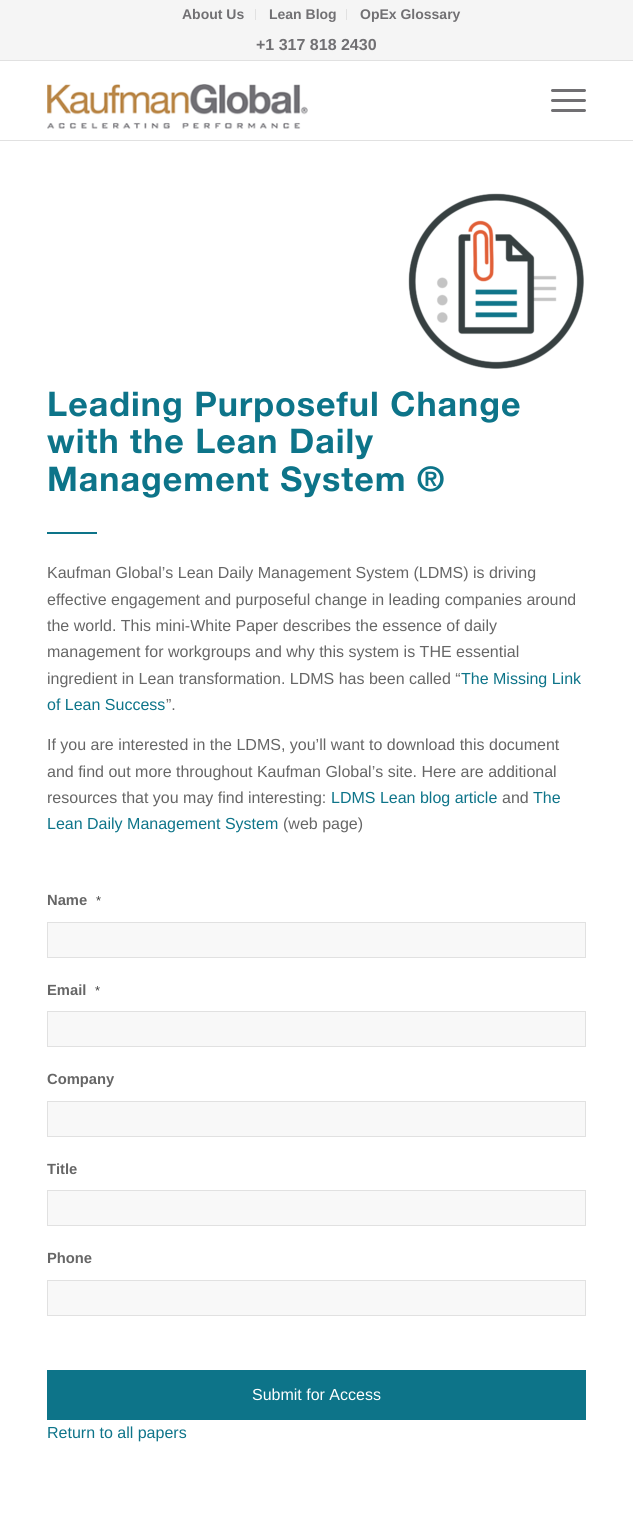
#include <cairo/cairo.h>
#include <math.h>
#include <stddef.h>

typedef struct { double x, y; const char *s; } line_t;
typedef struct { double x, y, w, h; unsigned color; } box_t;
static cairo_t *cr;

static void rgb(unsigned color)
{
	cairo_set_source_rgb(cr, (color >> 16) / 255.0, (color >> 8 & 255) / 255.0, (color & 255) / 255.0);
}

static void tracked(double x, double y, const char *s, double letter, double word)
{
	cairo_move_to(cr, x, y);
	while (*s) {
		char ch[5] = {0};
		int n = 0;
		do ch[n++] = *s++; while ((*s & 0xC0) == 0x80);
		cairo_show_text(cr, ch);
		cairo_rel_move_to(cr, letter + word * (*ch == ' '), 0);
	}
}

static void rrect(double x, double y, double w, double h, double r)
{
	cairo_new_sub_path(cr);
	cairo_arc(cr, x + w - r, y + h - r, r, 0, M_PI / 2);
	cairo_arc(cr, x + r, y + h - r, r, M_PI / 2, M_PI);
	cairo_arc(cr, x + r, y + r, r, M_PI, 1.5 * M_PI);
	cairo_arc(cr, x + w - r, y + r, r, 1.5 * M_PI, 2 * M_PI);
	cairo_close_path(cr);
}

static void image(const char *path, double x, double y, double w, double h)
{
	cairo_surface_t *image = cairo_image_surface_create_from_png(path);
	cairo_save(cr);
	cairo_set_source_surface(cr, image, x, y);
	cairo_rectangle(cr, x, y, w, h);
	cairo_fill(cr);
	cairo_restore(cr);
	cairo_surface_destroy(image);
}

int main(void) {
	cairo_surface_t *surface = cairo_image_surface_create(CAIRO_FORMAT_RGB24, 633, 1518);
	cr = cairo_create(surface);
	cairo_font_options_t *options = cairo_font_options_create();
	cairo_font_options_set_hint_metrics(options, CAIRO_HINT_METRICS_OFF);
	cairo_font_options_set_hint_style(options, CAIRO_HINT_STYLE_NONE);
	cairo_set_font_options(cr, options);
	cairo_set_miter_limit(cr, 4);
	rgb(0xffffff);
	cairo_paint(cr);
	{
		static const box_t items[] = {
			{0, 0, 633, 60, 0xf5f5f5},
			{0, 60, 633, 1, 0xe1e1e1},
			{255, 9, 1, 11, 0xe1e1e1},
			{346, 9, 1, 11, 0xe1e1e1},
			{0, 140, 633, 1, 0xe1e1e1},
		};
		for (size_t i = 0; i < sizeof items / sizeof *items; i++) {
			rgb(items[i].color);
			cairo_rectangle(cr, items[i].x, items[i].y, items[i].w, items[i].h);
			cairo_fill(cr);
		}
	}
	image("img/1.png", 47, 84, 261, 45);
	rgb(0x717073);
	rrect(551, 99, 35, 3, 1.5);
	cairo_fill(cr);
	rrect(551, 89, 35, 3, 1.5);
	cairo_fill(cr);
	rrect(551, 109, 35, 3, 1.5);
	cairo_fill(cr);
	image("img/2.png", 408, 193, 176, 176);
	rgb(0x0d7489);
	cairo_rectangle(cr, 47, 532, 50, 2);
	cairo_fill(cr);
	rgb(0xf8f8f8);
	cairo_rectangle(cr, 47.5, 922.5, 538, 35);
	cairo_fill_preserve(cr);
	rgb(0xe1e1e1);
	cairo_set_line_width(cr, 1);
	cairo_stroke(cr);
	rgb(0xf8f8f8);
	cairo_rectangle(cr, 47.5, 1011.5, 538, 35);
	cairo_fill_preserve(cr);
	rgb(0xe1e1e1);
	cairo_stroke(cr);
	rgb(0xf8f8f8);
	cairo_rectangle(cr, 47.5, 1101.5, 538, 35);
	cairo_fill_preserve(cr);
	rgb(0xe1e1e1);
	cairo_stroke(cr);
	rgb(0xf8f8f8);
	cairo_rectangle(cr, 47.5, 1190.5, 538, 35);
	cairo_fill_preserve(cr);
	rgb(0xe1e1e1);
	cairo_stroke(cr);
	rgb(0xf8f8f8);
	cairo_rectangle(cr, 47.5, 1280.5, 538, 35);
	cairo_fill_preserve(cr);
	rgb(0xe1e1e1);
	cairo_stroke(cr);
	rgb(0x0d7489);
	cairo_rectangle(cr, 47, 1370, 539, 50);
	cairo_fill(cr);
	cairo_select_font_face(cr, "Liberation Sans", CAIRO_FONT_SLANT_NORMAL, CAIRO_FONT_WEIGHT_BOLD);
	cairo_set_font_size(cr, 14);
	rgb(0x717073);
	{
		static const line_t items[] = {
			{182, 19, "About Us"},
			{269, 19, "Lean Blog"},
			{360, 19, "OpEx Glossary"},
		};
		for (size_t i = 0; i < sizeof items / sizeof *items; i++) {
			cairo_move_to(cr, items[i].x, items[i].y);
			cairo_show_text(cr, items[i].s);
		}
	}
	cairo_set_font_size(cr, 16);
	cairo_move_to(cr, 256, 50);
	cairo_show_text(cr, "+1 317 818 2430");
	cairo_select_font_face(cr, "Helvetica Neue", CAIRO_FONT_SLANT_NORMAL, CAIRO_FONT_WEIGHT_BOLD);
	cairo_set_font_size(cr, 34);
	rgb(0x0d7489);
	{
		static const line_t items[] = {
			{47, 416, "Leading Purposeful Change"},
			{47, 453, "with the Lean Daily"},
			{47, 491, "Management System ®"},
		};
		for (size_t i = 0; i < sizeof items / sizeof *items; i++) {
			tracked(items[i].x, items[i].y, items[i].s, 1, 0);
		}
	}
	cairo_select_font_face(cr, "Liberation Sans", CAIRO_FONT_SLANT_NORMAL, CAIRO_FONT_WEIGHT_NORMAL);
	cairo_set_font_size(cr, 16);
	rgb(0x666666);
	{
		static const line_t items[] = {
			{47, 578, "Kaufman Global’s Lean Daily Management System (LDMS) is driving"},
			{47, 605, "effective engagement and purposeful change in leading companies around"},
			{47, 631, "the world. This mini-White Paper describes the essence of daily"},
			{47, 657, "management for workgroups and why this system is THE essential"},
			{47, 684, "ingredient in Lean transformation. LDMS has been called “"},
		};
		for (size_t i = 0; i < sizeof items / sizeof *items; i++) {
			cairo_move_to(cr, items[i].x, items[i].y);
			cairo_show_text(cr, items[i].s);
		}
	}
	rgb(0x0d7489);
	cairo_move_to(cr, 461, 684);
	cairo_show_text(cr, "The Missing Link");
	cairo_move_to(cr, 47, 710);
	cairo_show_text(cr, "of Lean Success");
	rgb(0x666666);
	{
		static const line_t items[] = {
			{166, 710, "”."},
			{47, 750, "If you are interested in the LDMS, you’ll want to download this document"},
			{47, 777, "and find out more throughout Kaufman Global’s site. Here are additional"},
			{47, 803, "resources that you may find interesting:"},
		};
		for (size_t i = 0; i < sizeof items / sizeof *items; i++) {
			cairo_move_to(cr, items[i].x, items[i].y);
			cairo_show_text(cr, items[i].s);
		}
	}
	rgb(0x0d7489);
	cairo_move_to(cr, 331, 803);
	cairo_show_text(cr, "LDMS Lean blog article");
	rgb(0x666666);
	cairo_move_to(cr, 502, 803);
	cairo_show_text(cr, "and");
	rgb(0x0d7489);
	cairo_move_to(cr, 533, 803);
	cairo_show_text(cr, "The");
	cairo_move_to(cr, 47, 829);
	cairo_show_text(cr, "Lean Daily Management System");
	rgb(0x666666);
	cairo_move_to(cr, 283, 829);
	cairo_show_text(cr, "(web page)");
	cairo_select_font_face(cr, "Liberation Sans", CAIRO_FONT_SLANT_NORMAL, CAIRO_FONT_WEIGHT_BOLD);
	cairo_set_font_size(cr, 14.75);
	cairo_move_to(cr, 47, 905);
	cairo_show_text(cr, "Name");
	cairo_select_font_face(cr, "Liberation Sans", CAIRO_FONT_SLANT_NORMAL, CAIRO_FONT_WEIGHT_NORMAL);
	cairo_set_font_size(cr, 13);
	rgb(0x444444);
	cairo_move_to(cr, 96, 905);
	cairo_show_text(cr, "*");
	cairo_select_font_face(cr, "Liberation Sans", CAIRO_FONT_SLANT_NORMAL, CAIRO_FONT_WEIGHT_BOLD);
	cairo_set_font_size(cr, 14.75);
	rgb(0x666666);
	cairo_move_to(cr, 47, 995);
	cairo_show_text(cr, "Email");
	cairo_select_font_face(cr, "Liberation Sans", CAIRO_FONT_SLANT_NORMAL, CAIRO_FONT_WEIGHT_NORMAL);
	cairo_set_font_size(cr, 13);
	rgb(0x444444);
	cairo_move_to(cr, 95, 995);
	cairo_show_text(cr, "*");
	cairo_select_font_face(cr, "Liberation Sans", CAIRO_FONT_SLANT_NORMAL, CAIRO_FONT_WEIGHT_BOLD);
	cairo_set_font_size(cr, 14.75);
	rgb(0x666666);
	{
		static const line_t items[] = {
			{47, 1084, "Company"},
			{47, 1174, "Title"},
			{47, 1263, "Phone"},
		};
		for (size_t i = 0; i < sizeof items / sizeof *items; i++) {
			cairo_move_to(cr, items[i].x, items[i].y);
			cairo_show_text(cr, items[i].s);
		}
	}
	cairo_select_font_face(cr, "Liberation Sans", CAIRO_FONT_SLANT_NORMAL, CAIRO_FONT_WEIGHT_NORMAL);
	cairo_set_font_size(cr, 16);
	rgb(0xffffff);
	cairo_move_to(cr, 252, 1400);
	cairo_show_text(cr, "Submit for Access");
	rgb(0x0d7489);
	cairo_move_to(cr, 47, 1438);
	cairo_show_text(cr, "Return to all papers");
	cairo_surface_write_to_png(surface, "page.png");
	cairo_font_options_destroy(options);
	cairo_destroy(cr);
	cairo_surface_destroy(surface);
	return 0;
}
